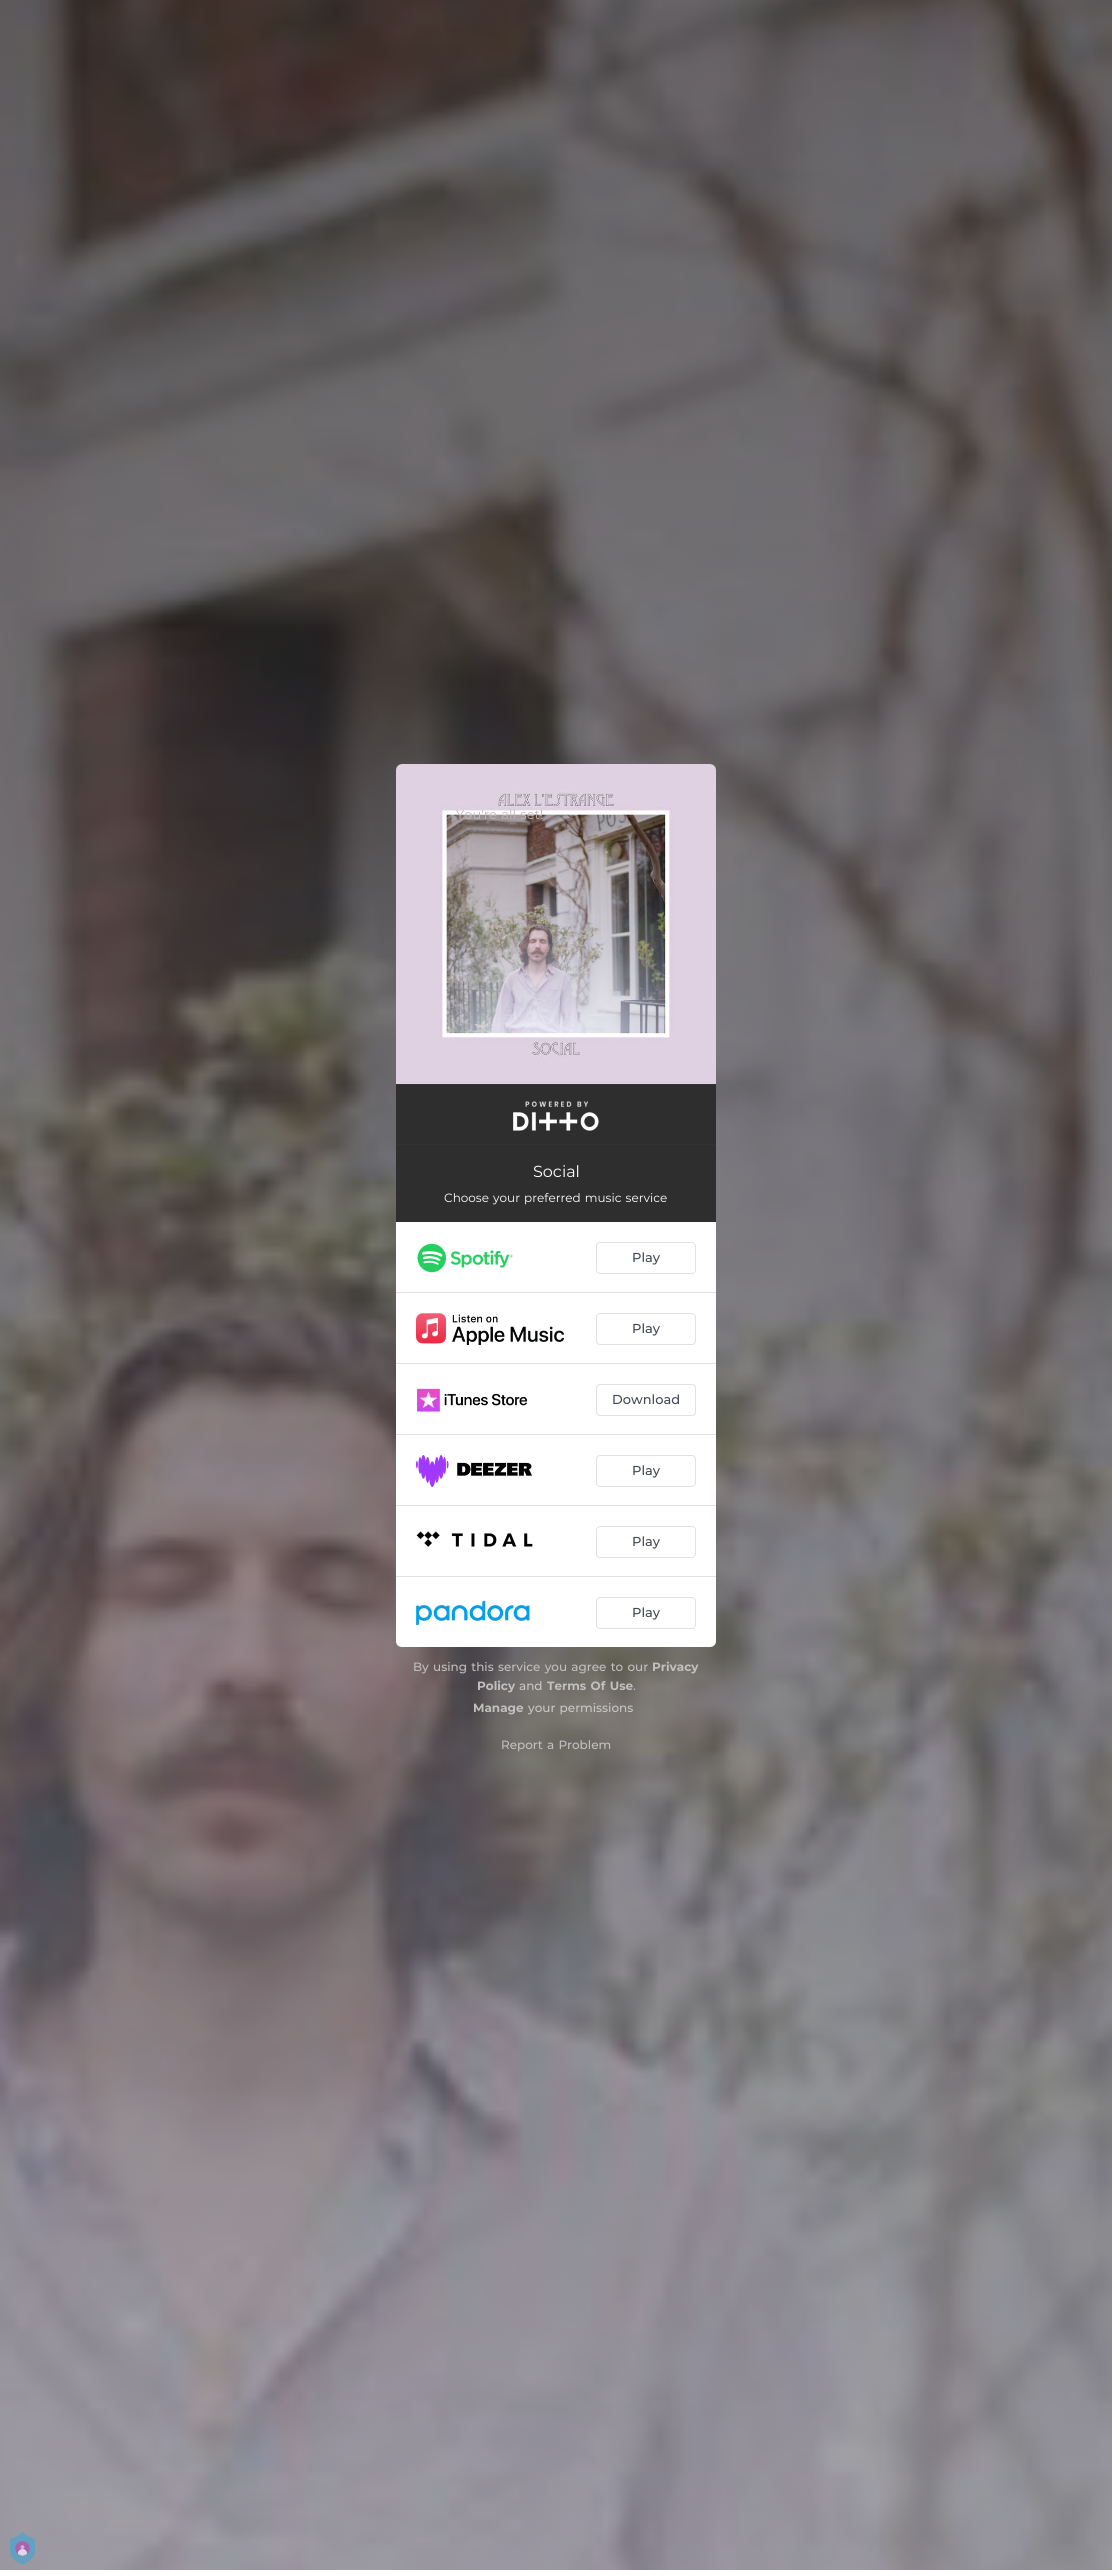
#include <cairo/cairo.h>
#include <math.h>
#include <stddef.h>

typedef struct { double x, y; const char *s; } line_t;
typedef struct { double x, y, w, h; unsigned color; } box_t;
static cairo_t *cr;

static void rgb(unsigned color)
{
	cairo_set_source_rgb(cr, (color >> 16) / 255.0, (color >> 8 & 255) / 255.0, (color & 255) / 255.0);
}

static void tracked(double x, double y, const char *s, double letter, double word)
{
	cairo_move_to(cr, x, y);
	while (*s) {
		char ch[5] = {0};
		int n = 0;
		do ch[n++] = *s++; while ((*s & 0xC0) == 0x80);
		cairo_show_text(cr, ch);
		cairo_rel_move_to(cr, letter + word * (*ch == ' '), 0);
	}
}

static void rrect(double x, double y, double w, double h, double r)
{
	cairo_new_sub_path(cr);
	cairo_arc(cr, x + w - r, y + h - r, r, 0, M_PI / 2);
	cairo_arc(cr, x + r, y + h - r, r, M_PI / 2, M_PI);
	cairo_arc(cr, x + r, y + r, r, M_PI, 1.5 * M_PI);
	cairo_arc(cr, x + w - r, y + r, r, 1.5 * M_PI, 2 * M_PI);
	cairo_close_path(cr);
}

static void image(const char *path, double x, double y, double w, double h)
{
	cairo_surface_t *image = cairo_image_surface_create_from_png(path);
	cairo_save(cr);
	cairo_set_source_surface(cr, image, x, y);
	cairo_rectangle(cr, x, y, w, h);
	cairo_fill(cr);
	cairo_restore(cr);
	cairo_surface_destroy(image);
}

int main(void) {
	cairo_surface_t *surface = cairo_image_surface_create(CAIRO_FORMAT_RGB24, 1112, 2570);
	cr = cairo_create(surface);
	cairo_font_options_t *options = cairo_font_options_create();
	cairo_font_options_set_hint_metrics(options, CAIRO_HINT_METRICS_OFF);
	cairo_font_options_set_hint_style(options, CAIRO_HINT_STYLE_NONE);
	cairo_set_font_options(cr, options);
	cairo_set_miter_limit(cr, 4);
	rgb(0xffffff);
	cairo_paint(cr);
	image("img/1.png", 0, 0, 1112, 2570);
	image("img/2.png", 396, 764, 320, 320);
	{
		static const box_t items[] = {
			{396, 1085, 320, 59, 0x2e2e2e},
			{396, 1084, 320, 1, 0x333333},
			{396, 1144, 320, 1, 0x333333},
		};
		for (size_t i = 0; i < sizeof items / sizeof *items; i++) {
			rgb(items[i].color);
			cairo_rectangle(cr, items[i].x, items[i].y, items[i].w, items[i].h);
			cairo_fill(cr);
		}
	}
	image("img/3.png", 513, 1101, 86, 30);
	rgb(0x2e2e2e);
	cairo_rectangle(cr, 396, 1145, 320, 77);
	cairo_fill(cr);
	rgb(0xffffff);
	cairo_new_path(cr);
	cairo_move_to(cr, 396, 1222);
	cairo_line_to(cr, 716, 1222);
	cairo_line_to(cr, 716, 1641);
	cairo_curve_to(cr, 716, 1644.5, 713.5, 1647, 710, 1647);
	cairo_line_to(cr, 402, 1647);
	cairo_curve_to(cr, 398.5, 1647, 396, 1644.5, 396, 1641);
	cairo_close_path(cr);
	cairo_fill(cr);
	rgb(0xe1e1e4);
	cairo_rectangle(cr, 396, 1292, 320, 1);
	cairo_fill(cr);
	image("img/4.png", 417, 1243, 96, 30);
	rrect(596.5, 1242.5, 99, 31, 3.5);
	cairo_set_line_width(cr, 1);
	cairo_stroke(cr);
	cairo_rectangle(cr, 396, 1363, 320, 1);
	cairo_fill(cr);
	image("img/5.png", 416, 1313, 148, 32);
	rrect(596.5, 1313.5, 99, 31, 3.5);
	cairo_stroke(cr);
	cairo_rectangle(cr, 396, 1434, 320, 1);
	cairo_fill(cr);
	image("img/6.png", 417, 1388, 111, 24);
	rrect(596.5, 1384.5, 99, 31, 3.5);
	cairo_stroke(cr);
	cairo_rectangle(cr, 396, 1505, 320, 1);
	cairo_fill(cr);
	image("img/7.png", 416, 1455, 116, 32);
	rrect(596.5, 1455.5, 99, 31, 3.5);
	cairo_stroke(cr);
	cairo_rectangle(cr, 396, 1576, 320, 1);
	cairo_fill(cr);
	image("img/8.png", 416, 1531, 117, 16);
	rrect(596.5, 1526.5, 99, 31, 3.5);
	cairo_stroke(cr);
	image("img/9.png", 416, 1600, 115, 26);
	rrect(596.5, 1597.5, 99, 31, 3.5);
	cairo_stroke(cr);
	image("img/10.png", 10, 2532, 25, 33);
	cairo_select_font_face(cr, "Montserrat", CAIRO_FONT_SLANT_NORMAL, CAIRO_FONT_WEIGHT_NORMAL);
	cairo_set_font_size(cr, 13);
	rgb(0xc0b8b8);
	tracked(456, 819, "You're all set!", 0, 1);
	cairo_set_font_size(cr, 16);
	rgb(0xffffff);
	cairo_move_to(cr, 533, 1177);
	cairo_show_text(cr, "Social");
	cairo_set_font_size(cr, 12);
	tracked(444, 1202, "Choose your preferred music service", 0, 1);
	cairo_select_font_face(cr, "Montserrat Medium", CAIRO_FONT_SLANT_NORMAL, CAIRO_FONT_WEIGHT_NORMAL);
	cairo_set_font_size(cr, 13);
	rgb(0x414754);
	{
		static const line_t items[] = {
			{632, 1262, "Play"},
			{632, 1333, "Play"},
			{612, 1404, "Download"},
			{632, 1475, "Play"},
			{632, 1546, "Play"},
			{632, 1617, "Play"},
		};
		for (size_t i = 0; i < sizeof items / sizeof *items; i++) {
			cairo_move_to(cr, items[i].x, items[i].y);
			cairo_show_text(cr, items[i].s);
		}
	}
	cairo_set_font_size(cr, 12);
	rgb(0xc2c0bf);
	tracked(413, 1671, "By using this service you agree to our", 0, 1);
	cairo_select_font_face(cr, "Montserrat", CAIRO_FONT_SLANT_NORMAL, CAIRO_FONT_WEIGHT_BOLD);
	cairo_move_to(cr, 652, 1671);
	cairo_show_text(cr, "Privacy");
	cairo_move_to(cr, 477, 1690);
	cairo_show_text(cr, "Policy");
	cairo_select_font_face(cr, "Montserrat Medium", CAIRO_FONT_SLANT_NORMAL, CAIRO_FONT_WEIGHT_NORMAL);
	rgb(0xc8c7c5);
	cairo_move_to(cr, 519, 1690);
	cairo_show_text(cr, "and");
	cairo_select_font_face(cr, "Montserrat", CAIRO_FONT_SLANT_NORMAL, CAIRO_FONT_WEIGHT_BOLD);
	rgb(0xc2c0bf);
	tracked(547, 1690, "Terms Of Use", 0, 1);
	cairo_select_font_face(cr, "Montserrat Medium", CAIRO_FONT_SLANT_NORMAL, CAIRO_FONT_WEIGHT_NORMAL);
	cairo_move_to(cr, 633, 1690);
	cairo_show_text(cr, ".");
	cairo_select_font_face(cr, "Montserrat", CAIRO_FONT_SLANT_NORMAL, CAIRO_FONT_WEIGHT_BOLD);
	cairo_move_to(cr, 473, 1712);
	cairo_show_text(cr, "Manage");
	cairo_select_font_face(cr, "Montserrat Medium", CAIRO_FONT_SLANT_NORMAL, CAIRO_FONT_WEIGHT_NORMAL);
	rgb(0xc8c7c5);
	tracked(528, 1712, "your permissions", 0, 1);
	rgb(0xc2c0bf);
	tracked(501, 1749, "Report a Problem", 0, 1);
	cairo_surface_write_to_png(surface, "page.png");
	cairo_font_options_destroy(options);
	cairo_destroy(cr);
	cairo_surface_destroy(surface);
	return 0;
}
